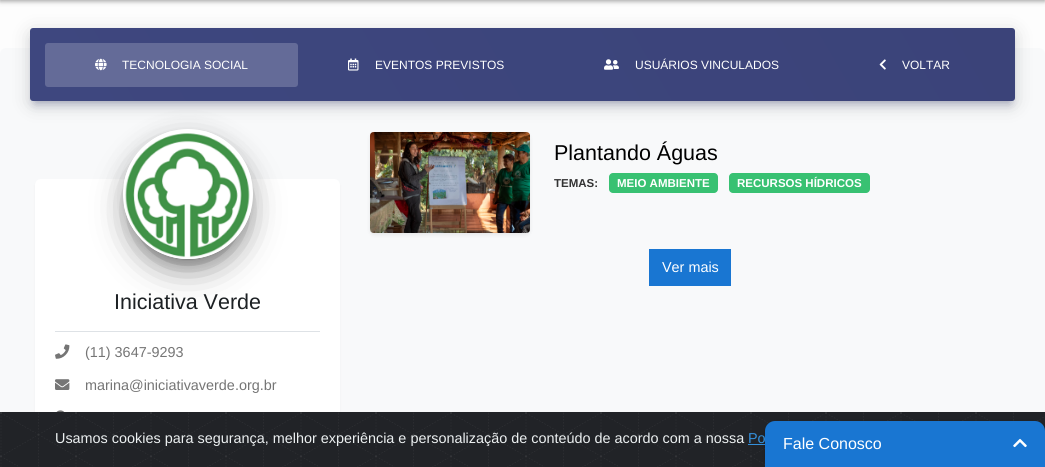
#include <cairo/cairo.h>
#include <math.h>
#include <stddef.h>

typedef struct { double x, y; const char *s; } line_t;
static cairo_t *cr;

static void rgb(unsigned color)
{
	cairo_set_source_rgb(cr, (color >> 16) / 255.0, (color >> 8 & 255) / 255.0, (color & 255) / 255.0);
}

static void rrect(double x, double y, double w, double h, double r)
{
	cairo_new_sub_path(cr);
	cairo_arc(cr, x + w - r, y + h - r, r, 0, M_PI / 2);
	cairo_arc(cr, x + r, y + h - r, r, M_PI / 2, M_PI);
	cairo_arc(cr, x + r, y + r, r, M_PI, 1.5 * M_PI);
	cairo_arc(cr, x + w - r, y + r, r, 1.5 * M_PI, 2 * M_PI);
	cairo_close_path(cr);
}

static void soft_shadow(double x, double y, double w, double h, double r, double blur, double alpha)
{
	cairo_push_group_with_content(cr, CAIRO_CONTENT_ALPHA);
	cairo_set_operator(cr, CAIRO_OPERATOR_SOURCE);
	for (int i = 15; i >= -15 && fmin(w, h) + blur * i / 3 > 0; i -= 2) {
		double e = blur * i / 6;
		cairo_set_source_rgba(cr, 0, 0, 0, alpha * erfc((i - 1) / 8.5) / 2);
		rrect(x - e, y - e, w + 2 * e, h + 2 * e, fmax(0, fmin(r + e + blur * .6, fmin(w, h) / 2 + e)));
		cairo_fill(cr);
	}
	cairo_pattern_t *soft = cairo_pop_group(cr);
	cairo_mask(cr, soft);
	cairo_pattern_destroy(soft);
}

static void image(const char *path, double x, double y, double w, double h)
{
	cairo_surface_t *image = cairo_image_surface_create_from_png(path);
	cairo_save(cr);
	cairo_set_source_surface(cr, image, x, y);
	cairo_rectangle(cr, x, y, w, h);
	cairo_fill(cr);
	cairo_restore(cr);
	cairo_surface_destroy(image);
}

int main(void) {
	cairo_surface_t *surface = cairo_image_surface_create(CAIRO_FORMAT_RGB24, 1045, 467);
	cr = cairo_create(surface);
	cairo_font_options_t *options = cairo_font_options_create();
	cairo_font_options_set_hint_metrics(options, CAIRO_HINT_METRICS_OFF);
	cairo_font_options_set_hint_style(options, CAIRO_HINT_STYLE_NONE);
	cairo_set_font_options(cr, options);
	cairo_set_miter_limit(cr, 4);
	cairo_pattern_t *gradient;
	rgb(0xfdfdfd);
	cairo_paint(cr);
	rgb(0x323232);
	soft_shadow(0, -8, 1045, 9, 0, 2.5, 0.5);
	rgb(0xf8f9fa);
	rrect(0, 48, 1045, 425, 6);
	cairo_fill(cr);
	rgb(0x3b4379);
	soft_shadow(35, 40, 975, 63, 0, 5, 0.4);
	rgb(0x000000);
	soft_shadow(370, 134, 160, 101, 4, 2, 0.07);
	image("img/5.png", 370, 132, 160, 101);
	rgb(0xefefef);
	soft_shadow(35, 181, 305, 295, 6, 1, 1);
	rgb(0xffffff);
	rrect(35, 179, 305, 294, 6);
	cairo_fill(cr);
	rgb(0x000000);
	soft_shadow(128, 142, 120, 120, 60, 5, 0.2);
	soft_shadow(123, 133, 130, 130, 65, 12.5, 0.12);
	soft_shadow(135, 157, 106, 106, 53, 19, 0.56);
	rgb(0xffffff);
	cairo_arc(cr, 188, 194, 65, 0, 2 * M_PI);
	cairo_fill(cr);
	image("img/6.png", 124, 131, 127, 128);
	rgb(0x000000);
	soft_shadow(30, 32, 985, 73, 3, 10, 0.14);
	gradient = cairo_pattern_create_linear(137, 287, 908, -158);
	cairo_pattern_add_color_stop_rgba(gradient, 0, 0.243, 0.278, 0.498, 1);
	cairo_pattern_add_color_stop_rgba(gradient, 1, 0.231, 0.263, 0.475, 1);
	cairo_set_source(cr, gradient);
	cairo_pattern_destroy(gradient);
	rrect(30, 28, 985, 73, 3);
	cairo_fill(cr);
	rgb(0x646b98);
	rrect(45, 43, 253, 44, 3);
	cairo_fill(cr);
	image("img/1.png", 95, 58, 12, 13);
	image("img/2.png", 348, 58, 11, 13);
	image("img/3.png", 604, 59, 15, 11);
	image("img/4.png", 879, 59, 7, 11);
	rgb(0x38c172);
	rrect(609, 173, 109, 20, 4);
	cairo_fill(cr);
	rrect(729, 173, 141, 20, 4);
	cairo_fill(cr);
	rgb(0x1976d2);
	cairo_rectangle(cr, 649, 249, 82, 37);
	cairo_fill(cr);
	rgb(0xdee2e6);
	cairo_rectangle(cr, 55, 331, 265, 1);
	cairo_fill(cr);
	image("img/7.png", 55, 344, 15, 15);
	image("img/8.png", 55, 379, 15, 11);
	image("img/9.png", 56, 410, 9, 2);
	rgb(0x212327);
	cairo_rectangle(cr, 1044, 412, 1, 19);
	cairo_fill(cr);
	image("img/11.png", 0, 412, 1044, 55);
	rgb(0x3490dc);
	cairo_rectangle(cr, 748, 444, 17, 1);
	cairo_fill(cr);
	rgb(0x000000);
	soft_shadow(765, 422, 280, 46, 10, 2.5, 0.12);
	soft_shadow(765, 423, 280, 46, 10, 1, 0.14);
	rgb(0x1976d2);
	cairo_new_path(cr);
	cairo_move_to(cr, 775, 421);
	cairo_line_to(cr, 1035, 421);
	cairo_curve_to(cr, 1040.5, 421, 1045, 425.5, 1045, 431);
	cairo_line_to(cr, 1045, 467);
	cairo_line_to(cr, 765, 467);
	cairo_line_to(cr, 765, 431);
	cairo_curve_to(cr, 765, 425.5, 769.5, 421, 775, 421);
	cairo_close_path(cr);
	cairo_fill(cr);
	image("img/10.png", 1013, 438, 14, 10);
	cairo_select_font_face(cr, "Liberation Sans", CAIRO_FONT_SLANT_NORMAL, CAIRO_FONT_WEIGHT_NORMAL);
	cairo_set_font_size(cr, 12);
	rgb(0xffffff);
	{
		static const line_t items[] = {
			{122, 69, "TECNOLOGIA SOCIAL"},
			{375, 69, "EVENTOS PREVISTOS"},
			{635, 69, "USUÁRIOS VINCULADOS"},
			{902, 69, "VOLTAR"},
		};
		for (size_t i = 0; i < sizeof items / sizeof *items; i++) {
			cairo_move_to(cr, items[i].x, items[i].y);
			cairo_show_text(cr, items[i].s);
		}
	}
	cairo_set_font_size(cr, 21.5);
	rgb(0x000000);
	cairo_move_to(cr, 554, 160);
	cairo_show_text(cr, "Plantando Águas");
	cairo_select_font_face(cr, "Liberation Sans", CAIRO_FONT_SLANT_NORMAL, CAIRO_FONT_WEIGHT_BOLD);
	cairo_set_font_size(cr, 11.5);
	rgb(0x333333);
	cairo_move_to(cr, 554, 187);
	cairo_show_text(cr, "TEMAS:");
	rgb(0xffffff);
	cairo_move_to(cr, 617, 187);
	cairo_show_text(cr, "MEIO AMBIENTE");
	cairo_move_to(cr, 737, 187);
	cairo_show_text(cr, "RECURSOS HÍDRICOS");
	cairo_select_font_face(cr, "Liberation Sans", CAIRO_FONT_SLANT_NORMAL, CAIRO_FONT_WEIGHT_NORMAL);
	cairo_set_font_size(cr, 14.4);
	cairo_move_to(cr, 662, 272);
	cairo_show_text(cr, "Ver mais");
	cairo_set_font_size(cr, 21.5);
	rgb(0x1d2124);
	cairo_move_to(cr, 114, 309);
	cairo_show_text(cr, "Iniciativa Verde");
	cairo_set_font_size(cr, 14.4);
	rgb(0x757575);
	cairo_move_to(cr, 85, 357);
	cairo_show_text(cr, "(11) 3647-9293");
	cairo_move_to(cr, 85, 390);
	cairo_show_text(cr, "marina@iniciativaverde.org.br");
	cairo_set_font_size(cr, 16);
	rgb(0xffffff);
	cairo_move_to(cr, 783, 449);
	cairo_show_text(cr, "Fale Conosco");
	cairo_set_font_size(cr, 14.4);
	rgb(0xecf0f1);
	cairo_move_to(cr, 55, 443);
	cairo_show_text(cr, "Usamos cookies para segurança, melhor experiência e personalização de conteúdo de acordo com a nossa");
	rgb(0x3490dc);
	cairo_move_to(cr, 748, 443);
	cairo_show_text(cr, "Po");
	cairo_surface_write_to_png(surface, "page.png");
	cairo_font_options_destroy(options);
	cairo_destroy(cr);
	cairo_surface_destroy(surface);
	return 0;
}
